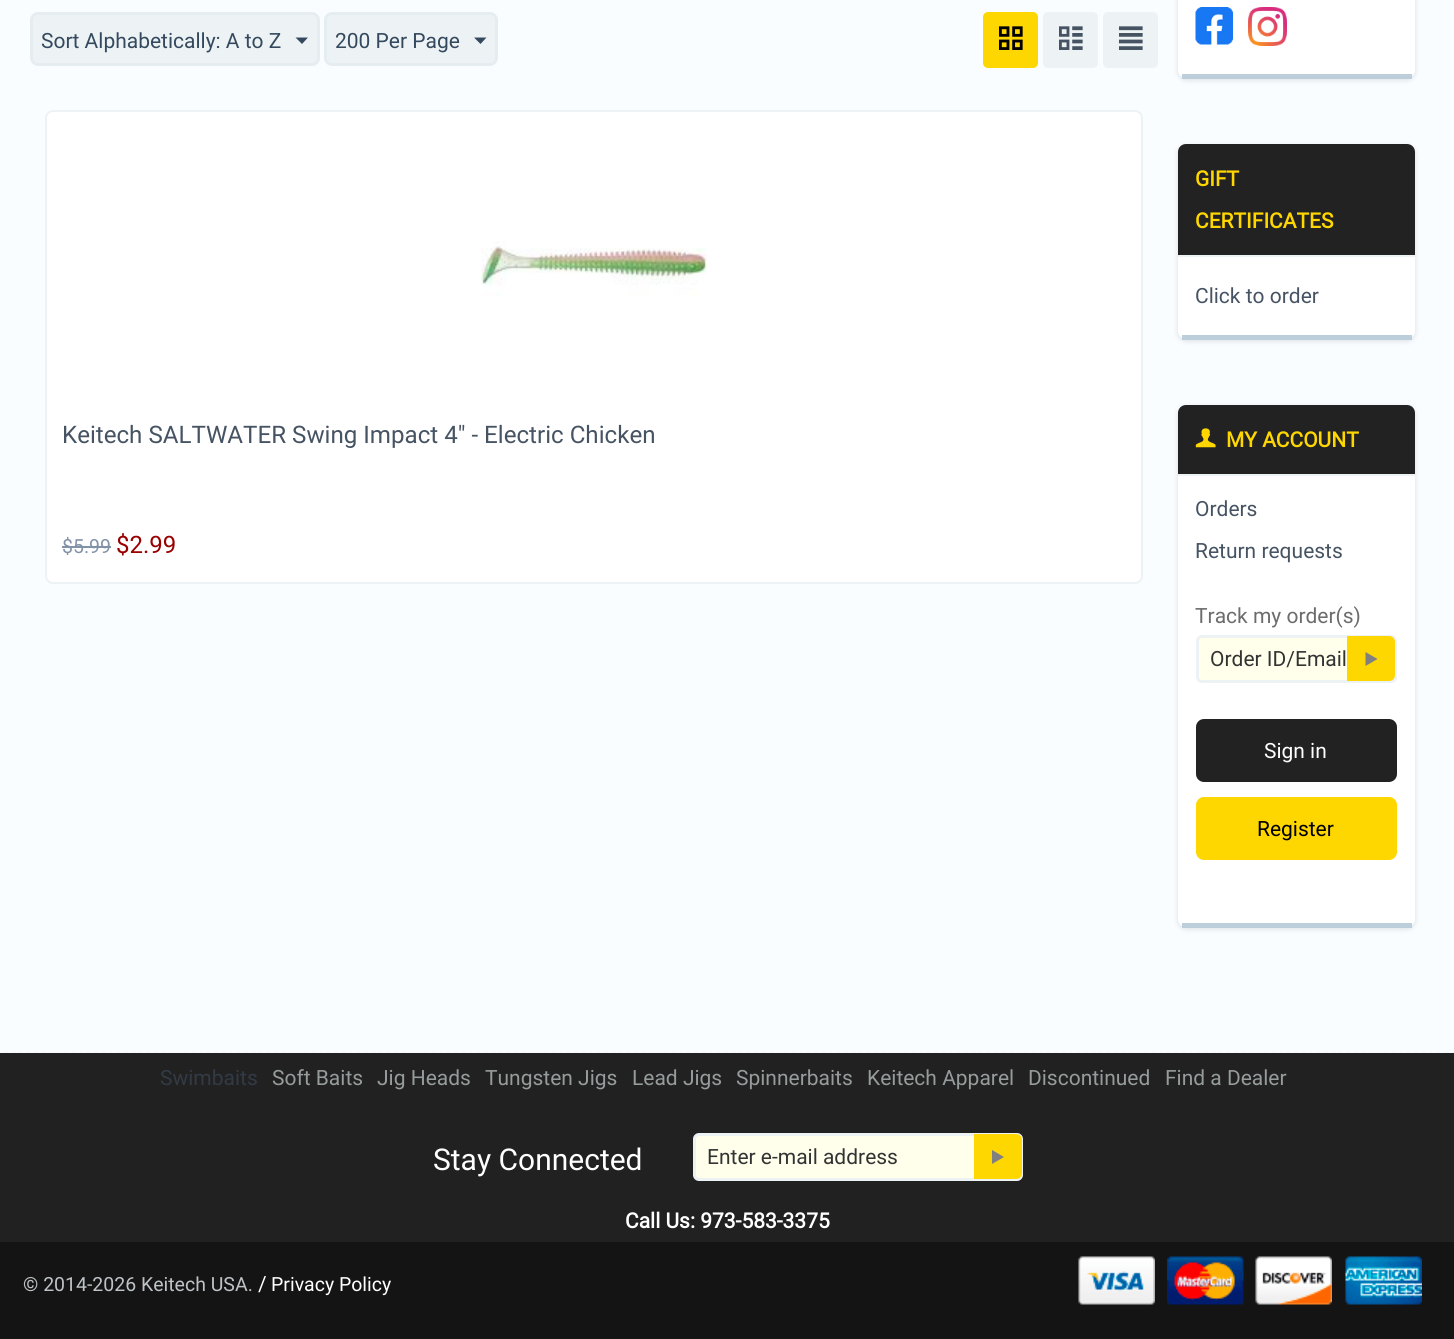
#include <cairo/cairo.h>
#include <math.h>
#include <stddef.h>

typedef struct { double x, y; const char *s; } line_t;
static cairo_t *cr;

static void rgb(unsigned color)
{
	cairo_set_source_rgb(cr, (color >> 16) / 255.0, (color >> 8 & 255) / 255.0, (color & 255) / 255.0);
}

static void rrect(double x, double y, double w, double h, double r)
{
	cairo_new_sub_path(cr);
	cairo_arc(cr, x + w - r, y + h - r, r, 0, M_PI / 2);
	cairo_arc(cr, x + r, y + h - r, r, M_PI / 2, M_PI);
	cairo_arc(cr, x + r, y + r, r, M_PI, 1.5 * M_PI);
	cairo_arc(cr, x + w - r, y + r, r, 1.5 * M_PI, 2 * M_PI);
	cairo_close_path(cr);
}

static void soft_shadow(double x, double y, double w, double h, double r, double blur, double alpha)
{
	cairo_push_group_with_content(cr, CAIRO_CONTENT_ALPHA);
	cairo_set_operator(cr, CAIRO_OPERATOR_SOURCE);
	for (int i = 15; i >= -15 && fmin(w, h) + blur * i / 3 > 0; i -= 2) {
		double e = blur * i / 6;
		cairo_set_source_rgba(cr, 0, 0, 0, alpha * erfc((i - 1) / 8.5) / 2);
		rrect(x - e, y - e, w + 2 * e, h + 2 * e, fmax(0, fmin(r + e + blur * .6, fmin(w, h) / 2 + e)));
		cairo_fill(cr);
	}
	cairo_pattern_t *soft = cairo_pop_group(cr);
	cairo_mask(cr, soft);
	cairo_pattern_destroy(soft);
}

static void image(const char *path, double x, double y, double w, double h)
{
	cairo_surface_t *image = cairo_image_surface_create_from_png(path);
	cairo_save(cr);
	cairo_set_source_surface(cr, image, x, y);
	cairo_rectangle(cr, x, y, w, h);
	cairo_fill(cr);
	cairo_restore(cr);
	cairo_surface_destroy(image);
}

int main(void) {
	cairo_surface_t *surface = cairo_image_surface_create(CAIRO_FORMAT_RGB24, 1454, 1339);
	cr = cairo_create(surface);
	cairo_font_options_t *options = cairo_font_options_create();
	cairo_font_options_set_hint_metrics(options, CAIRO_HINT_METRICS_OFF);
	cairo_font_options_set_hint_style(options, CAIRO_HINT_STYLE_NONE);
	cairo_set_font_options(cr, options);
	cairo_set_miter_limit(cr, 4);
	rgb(0xfafdff);
	cairo_paint(cr);
	rgb(0xedf2f5);
	rrect(31.5, 13.5, 287, 51, 6.5);
	cairo_fill_preserve(cr);
	rgb(0xe6edf1);
	cairo_set_line_width(cr, 3);
	cairo_stroke(cr);
	rgb(0x34495e);
	cairo_new_path(cr);
	cairo_move_to(cr, 302, 44);
	cairo_line_to(cr, 295.5, 37.5);
	cairo_line_to(cr, 308, 37.5);
	cairo_close_path(cr);
	cairo_fill(cr);
	rgb(0xedf2f5);
	rrect(325.5, 13.5, 171, 51, 6.5);
	cairo_fill_preserve(cr);
	rgb(0xe6edf1);
	cairo_stroke(cr);
	rgb(0x34495e);
	cairo_new_path(cr);
	cairo_move_to(cr, 480.5, 44);
	cairo_line_to(cr, 474, 37.5);
	cairo_line_to(cr, 486.5, 37.5);
	cairo_close_path(cr);
	cairo_fill(cr);
	rgb(0xffd700);
	rrect(983, 12, 55, 56, 5);
	cairo_fill(cr);
	image("img/1.png", 999, 26, 24, 24);
	rgb(0xedf2f5);
	rrect(1043, 12, 55, 56, 5);
	cairo_fill(cr);
	image("img/2.png", 1059, 26, 24, 24);
	rrect(1103, 12, 55, 56, 5);
	cairo_fill(cr);
	image("img/3.png", 1119, 26, 24, 24);
	rgb(0xffffff);
	rrect(46, 111, 1096, 472, 7);
	cairo_fill_preserve(cr);
	rgb(0xedf2f5);
	cairo_set_line_width(cr, 2);
	cairo_stroke(cr);
	image("img/4.png", 481, 241, 226, 55);
	rgb(0x8292a7);
	cairo_rectangle(cr, 62, 546, 49, 2);
	cairo_fill(cr);
	rgb(0x000000);
	soft_shadow(1178, -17, 237, 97, 8, 3, 0.12);
	rgb(0xffffff);
	rrect(1178, -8, 237, 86, 8);
	cairo_fill(cr);
	rgb(0xbcceda);
	cairo_rectangle(cr, 1182, 74, 230, 5);
	cairo_fill(cr);
	image("img/5.png", 1195, 7, 38, 38);
	image("img/6.png", 1248, 7, 39, 39);
	rgb(0x000000);
	soft_shadow(1178, 146, 237, 195, 8, 3, 0.12);
	rgb(0xffffff);
	rrect(1178, 144, 237, 195, 8);
	cairo_fill(cr);
	rgb(0xbcceda);
	cairo_rectangle(cr, 1182, 335, 230, 5);
	cairo_fill(cr);
	rgb(0x222222);
	cairo_new_path(cr);
	cairo_move_to(cr, 1186, 144);
	cairo_line_to(cr, 1407, 144);
	cairo_curve_to(cr, 1411.5, 144, 1415, 147.5, 1415, 152);
	cairo_line_to(cr, 1415, 257);
	cairo_line_to(cr, 1178, 257);
	cairo_line_to(cr, 1178, 152);
	cairo_curve_to(cr, 1178, 147.5, 1181.5, 144, 1186, 144);
	cairo_close_path(cr);
	cairo_fill(cr);
	rgb(0xedf2f5);
	cairo_rectangle(cr, 1178, 255, 237, 2);
	cairo_fill(cr);
	rgb(0x000000);
	soft_shadow(1178, 407, 237, 522, 8, 3, 0.12);
	rgb(0xffffff);
	rrect(1178, 405, 237, 522, 8);
	cairo_fill(cr);
	rgb(0xbcceda);
	cairo_rectangle(cr, 1182, 923, 230, 5);
	cairo_fill(cr);
	rgb(0x222222);
	cairo_new_path(cr);
	cairo_move_to(cr, 1186, 405);
	cairo_line_to(cr, 1407, 405);
	cairo_curve_to(cr, 1411.5, 405, 1415, 408.5, 1415, 413);
	cairo_line_to(cr, 1415, 476);
	cairo_line_to(cr, 1178, 476);
	cairo_line_to(cr, 1178, 413);
	cairo_curve_to(cr, 1178, 408.5, 1181.5, 405, 1186, 405);
	cairo_close_path(cr);
	cairo_fill(cr);
	rgb(0xedf2f5);
	cairo_rectangle(cr, 1178, 474, 237, 2);
	cairo_fill(cr);
	image("img/7.png", 1195, 428, 21, 20);
	rgb(0xffffec);
	rrect(1197.5, 636.5, 198, 45, 4.5);
	cairo_fill_preserve(cr);
	rgb(0xedf2f5);
	cairo_set_line_width(cr, 3);
	cairo_stroke(cr);
	rgb(0xffd700);
	cairo_new_path(cr);
	cairo_move_to(cr, 1347, 636);
	cairo_line_to(cr, 1389, 636);
	cairo_curve_to(cr, 1392.5, 636, 1395, 638.5, 1395, 642);
	cairo_line_to(cr, 1395, 675);
	cairo_curve_to(cr, 1395, 678.5, 1392.5, 681, 1389, 681);
	cairo_line_to(cr, 1347, 681);
	cairo_close_path(cr);
	cairo_fill(cr);
	rgb(0x808080);
	cairo_new_path(cr);
	cairo_move_to(cr, 1365.5, 652);
	cairo_line_to(cr, 1377.5, 659);
	cairo_line_to(cr, 1365.5, 666);
	cairo_close_path(cr);
	cairo_fill(cr);
	rgb(0x222222);
	rrect(1196, 719, 201, 63, 8);
	cairo_fill(cr);
	rgb(0xffd700);
	rrect(1196, 797, 201, 63, 8);
	cairo_fill(cr);
	rgb(0x212121);
	cairo_rectangle(cr, 0, 1053, 1454, 189);
	cairo_fill(cr);
	image("img/8.png", 5, 1052, 1449, 1);
	rgb(0xffffec);
	rrect(694.5, 1134.5, 327, 45, 4.5);
	cairo_fill_preserve(cr);
	rgb(0xedf2f5);
	cairo_stroke(cr);
	rgb(0xffd700);
	cairo_new_path(cr);
	cairo_move_to(cr, 974, 1134);
	cairo_line_to(cr, 1016, 1134);
	cairo_curve_to(cr, 1019.5, 1134, 1022, 1136.5, 1022, 1140);
	cairo_line_to(cr, 1022, 1173);
	cairo_curve_to(cr, 1022, 1176.5, 1019.5, 1179, 1016, 1179);
	cairo_line_to(cr, 974, 1179);
	cairo_close_path(cr);
	cairo_fill(cr);
	rgb(0x808080);
	cairo_new_path(cr);
	cairo_move_to(cr, 992, 1150);
	cairo_line_to(cr, 1004, 1157);
	cairo_line_to(cr, 992, 1164);
	cairo_close_path(cr);
	cairo_fill(cr);
	rgb(0x141414);
	cairo_rectangle(cr, 0, 1242, 1454, 97);
	cairo_fill(cr);
	image("img/9.png", 1078, 1256, 77, 49);
	image("img/10.png", 1167, 1256, 77, 49);
	image("img/11.png", 1255, 1256, 77, 49);
	image("img/12.png", 1345, 1256, 77, 49);
	cairo_select_font_face(cr, "Roboto", CAIRO_FONT_SLANT_NORMAL, CAIRO_FONT_WEIGHT_NORMAL);
	cairo_set_font_size(cr, 21);
	rgb(0x34495e);
	cairo_move_to(cr, 41, 48);
	cairo_show_text(cr, "Sort Alphabetically: A to Z");
	cairo_move_to(cr, 335, 48);
	cairo_show_text(cr, "200 Per Page");
	cairo_set_font_size(cr, 24.15);
	rgb(0x465363);
	cairo_move_to(cr, 62, 443);
	cairo_show_text(cr, "Keitech SALTWATER Swing Impact 4\" - Electric Chicken");
	cairo_set_font_size(cr, 19.5);
	rgb(0x8292a7);
	cairo_move_to(cr, 62, 553);
	cairo_show_text(cr, "$5.99");
	cairo_set_font_size(cr, 24);
	rgb(0x990000);
	cairo_move_to(cr, 116, 553);
	cairo_show_text(cr, "$2.99");
	cairo_select_font_face(cr, "Roboto", CAIRO_FONT_SLANT_NORMAL, CAIRO_FONT_WEIGHT_BOLD);
	cairo_set_font_size(cr, 21);
	rgb(0xffd700);
	cairo_move_to(cr, 1195, 186);
	cairo_show_text(cr, "GIFT");
	cairo_move_to(cr, 1195, 228);
	cairo_show_text(cr, "CERTIFICATES");
	cairo_select_font_face(cr, "Roboto", CAIRO_FONT_SLANT_NORMAL, CAIRO_FONT_WEIGHT_NORMAL);
	rgb(0x465363);
	cairo_move_to(cr, 1195, 303);
	cairo_show_text(cr, "Click to order");
	cairo_select_font_face(cr, "Roboto", CAIRO_FONT_SLANT_NORMAL, CAIRO_FONT_WEIGHT_BOLD);
	rgb(0xffd700);
	cairo_move_to(cr, 1226, 447);
	cairo_show_text(cr, "MY ACCOUNT");
	cairo_select_font_face(cr, "Roboto", CAIRO_FONT_SLANT_NORMAL, CAIRO_FONT_WEIGHT_NORMAL);
	rgb(0x465363);
	cairo_move_to(cr, 1195, 516);
	cairo_show_text(cr, "Orders");
	cairo_move_to(cr, 1195, 558);
	cairo_show_text(cr, "Return requests");
	rgb(0x6c6c6c);
	cairo_move_to(cr, 1195, 623);
	cairo_show_text(cr, "Track my order(s)");
	rgb(0x333333);
	cairo_move_to(cr, 1210, 666);
	cairo_show_text(cr, "Order ID/Email");
	rgb(0xffffff);
	cairo_move_to(cr, 1264, 758);
	cairo_show_text(cr, "Sign in");
	rgb(0x000000);
	cairo_move_to(cr, 1257, 836);
	cairo_show_text(cr, "Register");
	rgb(0x313a45);
	cairo_move_to(cr, 160, 1085);
	cairo_show_text(cr, "Swimbaits");
	rgb(0x969b9b);
	{
		static const line_t items[] = {
			{272, 1085, "Soft Baits"},
			{377, 1085, "Jig Heads"},
			{485, 1085, "Tungsten Jigs"},
			{632, 1085, "Lead Jigs"},
			{736, 1085, "Spinnerbaits"},
			{867, 1085, "Keitech Apparel"},
			{1028, 1085, "Discontinued"},
			{1165, 1085, "Find a Dealer"},
		};
		for (size_t i = 0; i < sizeof items / sizeof *items; i++) {
			cairo_move_to(cr, items[i].x, items[i].y);
			cairo_show_text(cr, items[i].s);
		}
	}
	cairo_set_font_size(cr, 30);
	rgb(0xffffff);
	cairo_move_to(cr, 433, 1170);
	cairo_show_text(cr, "Stay Connected");
	cairo_set_font_size(cr, 21);
	rgb(0x333333);
	cairo_move_to(cr, 707, 1164);
	cairo_show_text(cr, "Enter e-mail address");
	cairo_select_font_face(cr, "Roboto", CAIRO_FONT_SLANT_NORMAL, CAIRO_FONT_WEIGHT_BOLD);
	rgb(0xffffff);
	cairo_move_to(cr, 625, 1228);
	cairo_show_text(cr, "Call Us: 973-583-3375");
	cairo_select_font_face(cr, "Roboto", CAIRO_FONT_SLANT_NORMAL, CAIRO_FONT_WEIGHT_NORMAL);
	cairo_set_font_size(cr, 19.5);
	rgb(0xbdc3c7);
	cairo_move_to(cr, 23, 1291);
	cairo_show_text(cr, "© 2014-2026 Keitech USA.");
	cairo_set_font_size(cr, 21);
	rgb(0xffffff);
	cairo_move_to(cr, 258, 1291);
	cairo_show_text(cr, "/");
	cairo_set_font_size(cr, 19.5);
	cairo_move_to(cr, 271, 1291);
	cairo_show_text(cr, "Privacy Policy");
	cairo_surface_write_to_png(surface, "page.png");
	cairo_font_options_destroy(options);
	cairo_destroy(cr);
	cairo_surface_destroy(surface);
	return 0;
}
